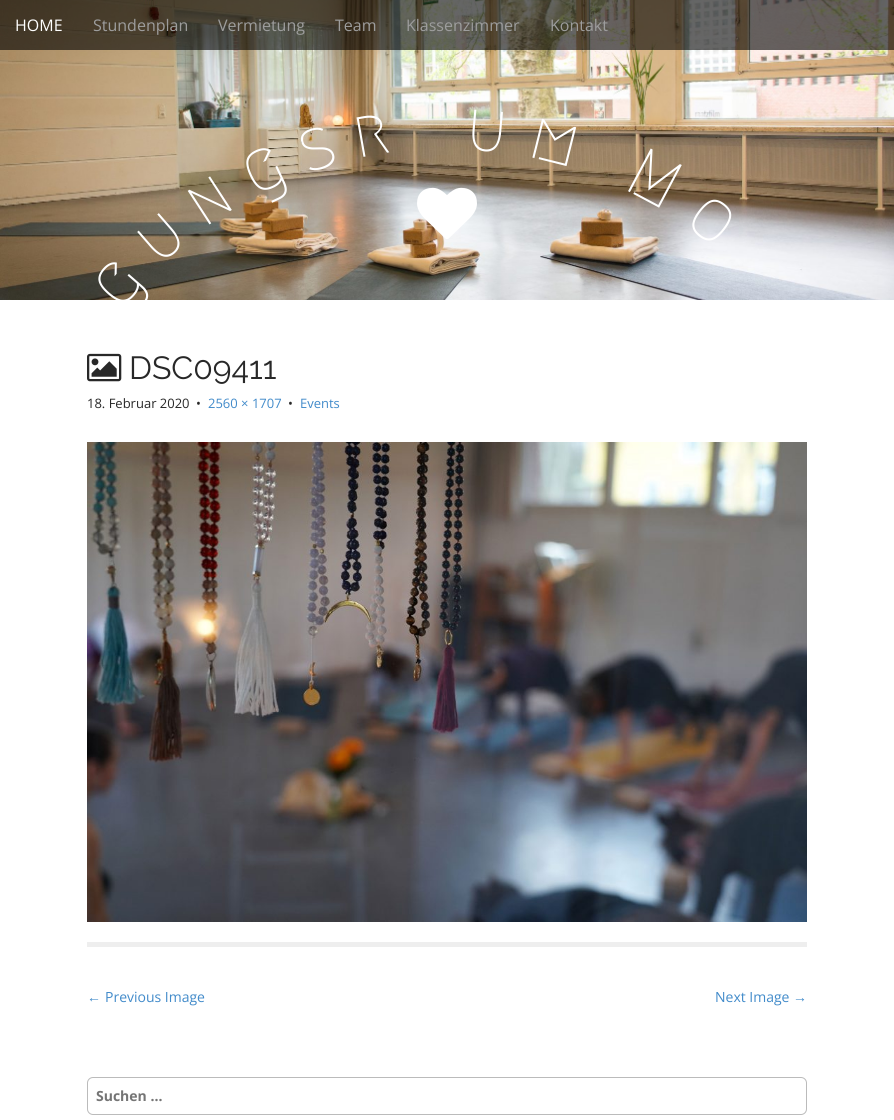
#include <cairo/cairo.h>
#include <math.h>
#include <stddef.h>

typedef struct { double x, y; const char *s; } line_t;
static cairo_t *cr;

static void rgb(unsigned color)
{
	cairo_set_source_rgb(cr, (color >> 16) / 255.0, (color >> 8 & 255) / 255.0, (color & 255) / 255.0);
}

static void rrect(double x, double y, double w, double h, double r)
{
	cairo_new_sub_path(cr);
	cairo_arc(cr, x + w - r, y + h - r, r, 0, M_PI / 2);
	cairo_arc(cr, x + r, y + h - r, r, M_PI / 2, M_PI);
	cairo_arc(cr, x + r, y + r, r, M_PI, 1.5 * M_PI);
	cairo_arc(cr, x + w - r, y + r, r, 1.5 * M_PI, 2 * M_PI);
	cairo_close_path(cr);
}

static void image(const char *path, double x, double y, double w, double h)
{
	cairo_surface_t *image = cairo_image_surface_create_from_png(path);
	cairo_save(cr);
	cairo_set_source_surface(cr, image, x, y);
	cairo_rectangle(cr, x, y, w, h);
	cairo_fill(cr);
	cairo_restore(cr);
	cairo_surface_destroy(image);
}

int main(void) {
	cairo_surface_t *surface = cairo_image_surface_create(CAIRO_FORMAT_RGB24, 894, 1120);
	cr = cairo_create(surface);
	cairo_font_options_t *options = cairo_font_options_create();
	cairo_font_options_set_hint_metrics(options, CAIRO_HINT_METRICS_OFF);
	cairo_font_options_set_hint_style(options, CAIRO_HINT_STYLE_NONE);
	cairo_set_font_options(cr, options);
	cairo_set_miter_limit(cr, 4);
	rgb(0xffffff);
	cairo_paint(cr);
	image("img/1.png", 0, 0, 894, 300);
	cairo_set_source_rgba(cr, 0, 0, 0, 0.6);
	cairo_rectangle(cr, 0, 0, 894, 50);
	cairo_fill(cr);
	image("img/2.png", 417, 187, 60, 52);
	rgb(0xeeeeee);
	cairo_rectangle(cr, 87, 942, 720, 5);
	cairo_fill(cr);
	image("img/3.png", 87, 353, 35, 29);
	image("img/4.png", 87, 442, 720, 480);
	rrect(87.5, 1077.5, 719, 37, 5.5);
	rgb(0xbbbbbb);
	cairo_set_line_width(cr, 1);
	cairo_stroke(cr);
	cairo_select_font_face(cr, "Open Sans", CAIRO_FONT_SLANT_NORMAL, CAIRO_FONT_WEIGHT_NORMAL);
	cairo_set_font_size(cr, 16);
	rgb(0xffffff);
	cairo_move_to(cr, 15, 31);
	cairo_show_text(cr, "HOME");
	rgb(0x9d9d9d);
	{
		static const line_t items[] = {
			{93, 31, "Stundenplan"},
			{218, 31, "Vermietung"},
			{335, 31, "Team"},
			{406, 31, "Klassenzimmer"},
			{550, 31, "Kontakt"},
		};
		for (size_t i = 0; i < sizeof items / sizeof *items; i++) {
			cairo_move_to(cr, items[i].x, items[i].y);
			cairo_show_text(cr, items[i].s);
		}
	}
	cairo_select_font_face(cr, "Megrim Medium", CAIRO_FONT_SLANT_NORMAL, CAIRO_FONT_WEIGHT_NORMAL);
	cairo_set_font_size(cr, 69);
	rgb(0xffffff);
	cairo_save(cr);
	cairo_translate(cr, 159, 266);
	cairo_rotate(cr, -41 * M_PI / 180);
	cairo_move_to(cr, 0, 0);
	cairo_show_text(cr, "u");
	cairo_restore(cr);
	cairo_save(cr);
	cairo_translate(cr, 204, 228);
	cairo_rotate(cr, -33 * M_PI / 180);
	cairo_move_to(cr, 0, 0);
	cairo_show_text(cr, "n");
	cairo_restore(cr);
	cairo_save(cr);
	cairo_translate(cr, 254, 196);
	cairo_rotate(cr, -25 * M_PI / 180);
	cairo_move_to(cr, 0, 0);
	cairo_show_text(cr, "g");
	cairo_restore(cr);
	cairo_save(cr);
	cairo_translate(cr, 306, 173);
	cairo_rotate(cr, -17 * M_PI / 180);
	cairo_move_to(cr, 0, 0);
	cairo_show_text(cr, "s");
	cairo_restore(cr);
	cairo_save(cr);
	cairo_translate(cr, 357, 158);
	cairo_rotate(cr, -10 * M_PI / 180);
	cairo_move_to(cr, 0, 0);
	cairo_show_text(cr, "r");
	cairo_restore(cr);
	cairo_save(cr);
	cairo_translate(cr, 465, 149);
	cairo_rotate(cr, 5 * M_PI / 180);
	cairo_move_to(cr, 0, 0);
	cairo_show_text(cr, "u");
	cairo_restore(cr);
	cairo_save(cr);
	cairo_translate(cr, 526, 156);
	cairo_rotate(cr, 14 * M_PI / 180);
	cairo_move_to(cr, 0, 0);
	cairo_show_text(cr, "m");
	cairo_restore(cr);
	cairo_save(cr);
	cairo_translate(cr, 622, 188);
	cairo_rotate(cr, 28 * M_PI / 180);
	cairo_move_to(cr, 0, 0);
	cairo_show_text(cr, "M");
	cairo_restore(cr);
	cairo_save(cr);
	cairo_translate(cr, 683, 223);
	cairo_rotate(cr, 38 * M_PI / 180);
	cairo_move_to(cr, 0, 0);
	cairo_show_text(cr, "o");
	cairo_restore(cr);
	cairo_save(cr);
	cairo_rectangle(cr, 0, 0, 894, 300);
	cairo_clip(cr);
	cairo_save(cr);
	cairo_translate(cr, 120, 311);
	cairo_rotate(cr, -49 * M_PI / 180);
	cairo_move_to(cr, 0, 0);
	cairo_show_text(cr, "g");
	cairo_restore(cr);
	cairo_restore(cr);
	cairo_select_font_face(cr, "Raleway Thin", CAIRO_FONT_SLANT_NORMAL, CAIRO_FONT_WEIGHT_NORMAL);
	cairo_set_font_size(cr, 32);
	rgb(0x282828);
	cairo_move_to(cr, 129, 379);
	cairo_show_text(cr, "DSC09411");
	cairo_select_font_face(cr, "Open Sans", CAIRO_FONT_SLANT_NORMAL, CAIRO_FONT_WEIGHT_NORMAL);
	cairo_set_font_size(cr, 13);
	cairo_move_to(cr, 87, 408);
	cairo_show_text(cr, "18. Februar 2020");
	cairo_move_to(cr, 196, 408);
	cairo_show_text(cr, "•");
	rgb(0x428bca);
	cairo_move_to(cr, 208, 408);
	cairo_show_text(cr, "2560 × 1707");
	rgb(0x282828);
	cairo_move_to(cr, 288, 408);
	cairo_show_text(cr, "•");
	rgb(0x428bca);
	cairo_move_to(cr, 300, 408);
	cairo_show_text(cr, "Events");
	cairo_select_font_face(cr, "Liberation Sans", CAIRO_FONT_SLANT_NORMAL, CAIRO_FONT_WEIGHT_NORMAL);
	cairo_set_font_size(cr, 14);
	cairo_move_to(cr, 87, 1002);
	cairo_show_text(cr, "←");
	cairo_select_font_face(cr, "Open Sans", CAIRO_FONT_SLANT_NORMAL, CAIRO_FONT_WEIGHT_NORMAL);
	cairo_move_to(cr, 105, 1002);
	cairo_show_text(cr, "Previous Image");
	cairo_move_to(cr, 715, 1002);
	cairo_show_text(cr, "Next Image");
	cairo_select_font_face(cr, "Liberation Sans", CAIRO_FONT_SLANT_NORMAL, CAIRO_FONT_WEIGHT_NORMAL);
	cairo_move_to(cr, 793, 1002);
	cairo_show_text(cr, "→");
	cairo_select_font_face(cr, "Open Sans", CAIRO_FONT_SLANT_NORMAL, CAIRO_FONT_WEIGHT_BOLD);
	rgb(0x757575);
	cairo_move_to(cr, 96, 1101);
	cairo_show_text(cr, "Suchen …");
	cairo_surface_write_to_png(surface, "page.png");
	cairo_font_options_destroy(options);
	cairo_destroy(cr);
	cairo_surface_destroy(surface);
	return 0;
}
